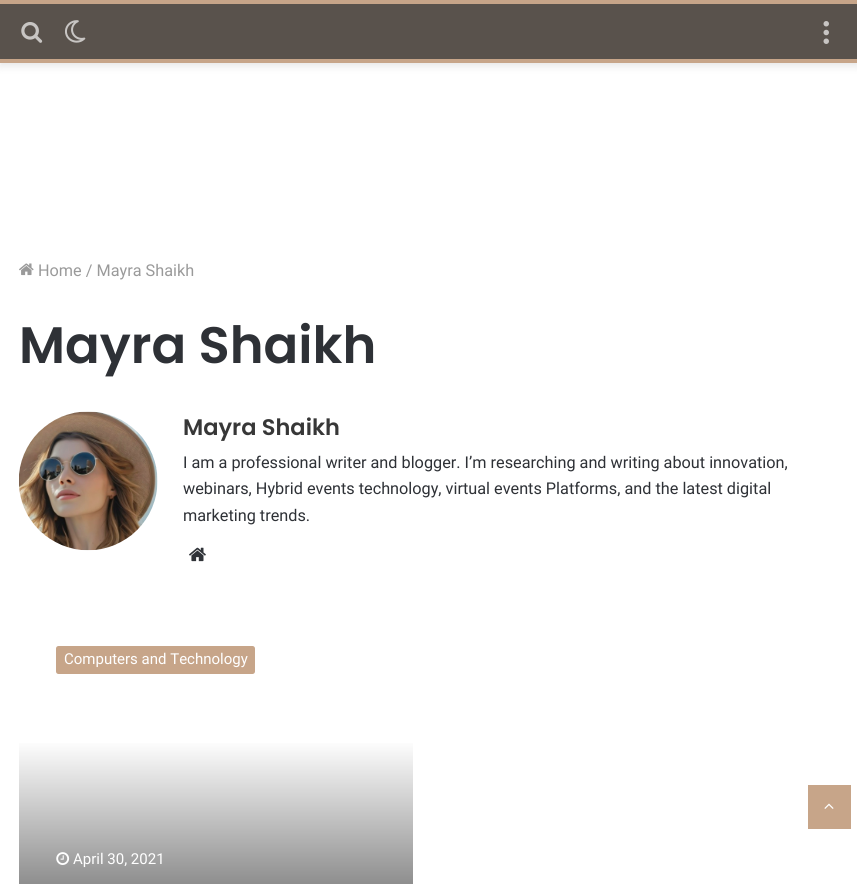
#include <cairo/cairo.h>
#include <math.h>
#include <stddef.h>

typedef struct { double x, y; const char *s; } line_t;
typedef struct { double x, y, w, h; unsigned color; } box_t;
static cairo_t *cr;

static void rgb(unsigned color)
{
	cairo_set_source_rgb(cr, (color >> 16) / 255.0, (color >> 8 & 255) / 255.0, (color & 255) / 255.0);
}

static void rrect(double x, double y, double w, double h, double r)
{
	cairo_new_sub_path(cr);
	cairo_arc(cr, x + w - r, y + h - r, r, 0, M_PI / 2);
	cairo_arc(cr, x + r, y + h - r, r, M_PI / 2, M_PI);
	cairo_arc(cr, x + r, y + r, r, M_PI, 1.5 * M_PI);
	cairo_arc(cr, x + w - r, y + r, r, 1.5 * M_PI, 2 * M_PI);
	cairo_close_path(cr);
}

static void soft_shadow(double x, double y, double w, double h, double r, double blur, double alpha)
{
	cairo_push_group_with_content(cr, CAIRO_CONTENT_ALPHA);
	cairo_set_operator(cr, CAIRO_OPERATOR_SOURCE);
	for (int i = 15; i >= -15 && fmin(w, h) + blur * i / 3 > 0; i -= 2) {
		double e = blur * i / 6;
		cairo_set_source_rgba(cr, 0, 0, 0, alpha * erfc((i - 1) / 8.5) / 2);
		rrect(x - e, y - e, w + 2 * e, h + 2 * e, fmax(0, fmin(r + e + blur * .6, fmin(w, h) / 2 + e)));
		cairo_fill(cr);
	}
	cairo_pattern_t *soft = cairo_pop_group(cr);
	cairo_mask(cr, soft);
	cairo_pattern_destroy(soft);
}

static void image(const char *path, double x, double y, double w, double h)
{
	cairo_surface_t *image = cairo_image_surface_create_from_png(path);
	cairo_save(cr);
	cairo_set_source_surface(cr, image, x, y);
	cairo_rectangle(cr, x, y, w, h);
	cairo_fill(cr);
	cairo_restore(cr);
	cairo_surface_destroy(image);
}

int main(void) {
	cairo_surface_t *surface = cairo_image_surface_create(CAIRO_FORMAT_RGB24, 857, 884);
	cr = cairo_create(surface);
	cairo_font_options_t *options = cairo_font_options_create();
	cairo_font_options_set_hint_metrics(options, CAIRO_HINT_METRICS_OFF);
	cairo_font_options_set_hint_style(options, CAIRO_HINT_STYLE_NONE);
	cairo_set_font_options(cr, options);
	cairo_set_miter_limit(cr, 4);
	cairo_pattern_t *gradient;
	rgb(0xffffff);
	cairo_paint(cr);
	rgb(0x000000);
	soft_shadow(0, 4, 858, 62, 0, 4.5, 0.1);
	{
		static const box_t items[] = {
			{0, 4, 857, 55, 0x59524c},
			{0, 0, 857, 4, 0xc7a589},
			{0, 59, 857, 4, 0xc7a589},
		};
		for (size_t i = 0; i < sizeof items / sizeof *items; i++) {
			rgb(items[i].color);
			cairo_rectangle(cr, items[i].x, items[i].y, items[i].w, items[i].h);
			cairo_fill(cr);
		}
	}
	image("img/1.png", 21, 22, 22, 21);
	image("img/2.png", 65, 20, 21, 23);
	image("img/3.png", 823, 21, 6, 23);
	image("img/4.png", 19, 263, 15, 13);
	image("img/5.png", 19, 411, 139, 140);
	image("img/6.png", 189, 547, 17, 15);
	rrect(56, 646, 199, 28, 2.5);
	cairo_fill(cr);
	gradient = cairo_pattern_create_linear(216, 740, 216, 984);
	cairo_pattern_add_color_stop_rgba(gradient, 0, 1, 1, 1, 1);
	cairo_pattern_add_color_stop_rgba(gradient, 1, 0.251, 0.251, 0.251, 1);
	cairo_set_source(cr, gradient);
	cairo_pattern_destroy(gradient);
	cairo_rectangle(cr, 19, 743, 394, 141);
	cairo_fill(cr);
	image("img/7.png", 56, 852, 14, 13);
	rgb(0xc7a589);
	cairo_rectangle(cr, 808, 785, 43, 44);
	cairo_fill(cr);
	image("img/8.png", 824, 803, 10, 6);
	cairo_select_font_face(cr, "Roboto", CAIRO_FONT_SLANT_NORMAL, CAIRO_FONT_WEIGHT_NORMAL);
	cairo_set_font_size(cr, 16.25);
	rgb(0x9a9a9a);
	cairo_move_to(cr, 38, 276);
	cairo_show_text(cr, "Home / Mayra Shaikh");
	cairo_select_font_face(cr, "Poppins SemiBold", CAIRO_FONT_SLANT_NORMAL, CAIRO_FONT_WEIGHT_NORMAL);
	cairo_set_font_size(cr, 51.25);
	rgb(0x2e3136);
	cairo_move_to(cr, 19, 363);
	cairo_show_text(cr, "Mayra Shaikh");
	cairo_set_font_size(cr, 22.5);
	rgb(0x373737);
	cairo_move_to(cr, 183, 435);
	cairo_show_text(cr, "Mayra Shaikh");
	cairo_select_font_face(cr, "Roboto", CAIRO_FONT_SLANT_NORMAL, CAIRO_FONT_WEIGHT_NORMAL);
	cairo_set_font_size(cr, 16.25);
	rgb(0x2e3136);
	{
		static const line_t items[] = {
			{183, 468, "I am a professional writer and blogger. I’m researching and writing about innovation,"},
			{183, 494, "webinars, Hybrid events technology, virtual events Platforms, and the latest digital"},
			{183, 521, "marketing trends."},
		};
		for (size_t i = 0; i < sizeof items / sizeof *items; i++) {
			cairo_move_to(cr, items[i].x, items[i].y);
			cairo_show_text(cr, items[i].s);
		}
	}
	cairo_set_font_size(cr, 15);
	rgb(0xffffff);
	cairo_move_to(cr, 64, 664);
	cairo_show_text(cr, "Computers and Technology");
	cairo_move_to(cr, 73, 864);
	cairo_show_text(cr, "April 30, 2021");
	cairo_surface_write_to_png(surface, "page.png");
	cairo_font_options_destroy(options);
	cairo_destroy(cr);
	cairo_surface_destroy(surface);
	return 0;
}
